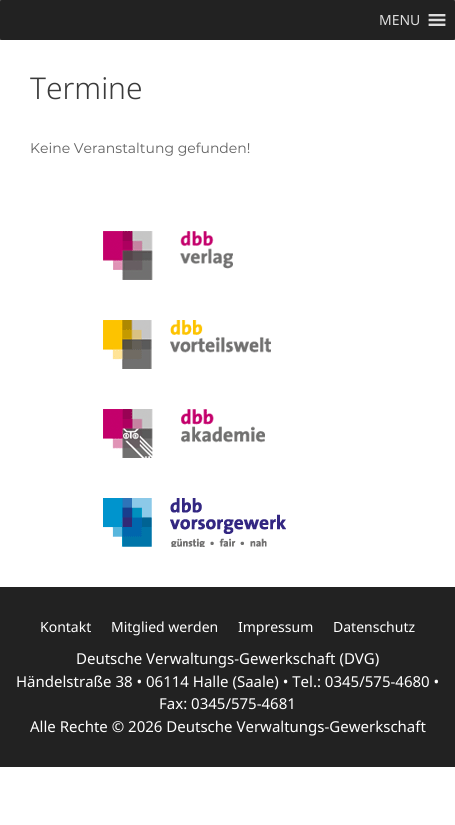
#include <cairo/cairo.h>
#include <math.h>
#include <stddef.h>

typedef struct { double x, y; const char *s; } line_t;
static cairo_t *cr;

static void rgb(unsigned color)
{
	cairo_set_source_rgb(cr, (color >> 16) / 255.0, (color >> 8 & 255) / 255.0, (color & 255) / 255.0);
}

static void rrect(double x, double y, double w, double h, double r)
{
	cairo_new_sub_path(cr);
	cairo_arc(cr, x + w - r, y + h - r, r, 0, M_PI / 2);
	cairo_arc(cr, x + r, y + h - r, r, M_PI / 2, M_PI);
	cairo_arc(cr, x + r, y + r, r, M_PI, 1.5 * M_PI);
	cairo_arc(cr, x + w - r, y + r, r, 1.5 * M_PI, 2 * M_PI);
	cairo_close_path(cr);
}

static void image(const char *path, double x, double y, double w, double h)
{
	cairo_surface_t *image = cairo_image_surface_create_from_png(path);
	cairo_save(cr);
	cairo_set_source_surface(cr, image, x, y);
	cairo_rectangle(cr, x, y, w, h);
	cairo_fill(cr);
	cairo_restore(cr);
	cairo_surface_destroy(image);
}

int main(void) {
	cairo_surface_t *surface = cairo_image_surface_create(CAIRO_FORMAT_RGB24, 455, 825);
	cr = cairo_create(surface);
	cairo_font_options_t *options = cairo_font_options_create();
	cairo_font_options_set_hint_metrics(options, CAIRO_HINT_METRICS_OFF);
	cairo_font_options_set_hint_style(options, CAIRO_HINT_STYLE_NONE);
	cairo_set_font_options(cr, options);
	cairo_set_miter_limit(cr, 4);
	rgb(0xffffff);
	cairo_paint(cr);
	rgb(0x595959);
	cairo_rectangle(cr, 0, 0, 455, 40);
	cairo_fill(cr);
	rgb(0x222222);
	rrect(0, 0, 455, 40, 2);
	cairo_fill(cr);
	image("img/1.png", 428, 14, 18, 12);
	image("img/2.png", 103, 231, 130, 49);
	image("img/3.png", 103, 320, 168, 49);
	image("img/4.png", 103, 409, 162, 49);
	image("img/5.png", 103, 498, 183, 49);
	cairo_rectangle(cr, 0, 587, 455, 180);
	cairo_fill(cr);
	cairo_select_font_face(cr, "Noto Sans", CAIRO_FONT_SLANT_NORMAL, CAIRO_FONT_WEIGHT_NORMAL);
	cairo_set_font_size(cr, 14);
	rgb(0xdddddd);
	cairo_move_to(cr, 379, 25);
	cairo_show_text(cr, "MENU");
	cairo_select_font_face(cr, "Noto Sans Light", CAIRO_FONT_SLANT_NORMAL, CAIRO_FONT_WEIGHT_NORMAL);
	cairo_set_font_size(cr, 30);
	rgb(0x3a3a3a);
	cairo_move_to(cr, 30, 99);
	cairo_show_text(cr, "Termine");
	cairo_select_font_face(cr, "Montserrat", CAIRO_FONT_SLANT_NORMAL, CAIRO_FONT_WEIGHT_NORMAL);
	cairo_set_font_size(cr, 14);
	rgb(0x626262);
	cairo_move_to(cr, 30, 153);
	cairo_show_text(cr, "Keine Veranstaltung gefunden!");
	cairo_select_font_face(cr, "Noto Sans", CAIRO_FONT_SLANT_NORMAL, CAIRO_FONT_WEIGHT_NORMAL);
	rgb(0xffffff);
	{
		static const line_t items[] = {
			{40, 632, "Kontakt"},
			{111, 632, "Mitglied werden"},
			{238, 632, "Impressum"},
			{333, 632, "Datenschutz"},
		};
		for (size_t i = 0; i < sizeof items / sizeof *items; i++) {
			cairo_move_to(cr, items[i].x, items[i].y);
			cairo_show_text(cr, items[i].s);
		}
	}
	cairo_set_font_size(cr, 15);
	{
		static const line_t items[] = {
			{76, 664, "Deutsche Verwaltungs-Gewerkschaft (DVG)"},
			{16, 687, "Händelstraße 38 • 06114 Halle (Saale) • Tel.: 0345/575-4680 •"},
			{159, 709, "Fax: 0345/575-4681"},
			{30, 732, "Alle Rechte © 2026 Deutsche Verwaltungs-Gewerkschaft"},
		};
		for (size_t i = 0; i < sizeof items / sizeof *items; i++) {
			cairo_move_to(cr, items[i].x, items[i].y);
			cairo_show_text(cr, items[i].s);
		}
	}
	cairo_surface_write_to_png(surface, "page.png");
	cairo_font_options_destroy(options);
	cairo_destroy(cr);
	cairo_surface_destroy(surface);
	return 0;
}
